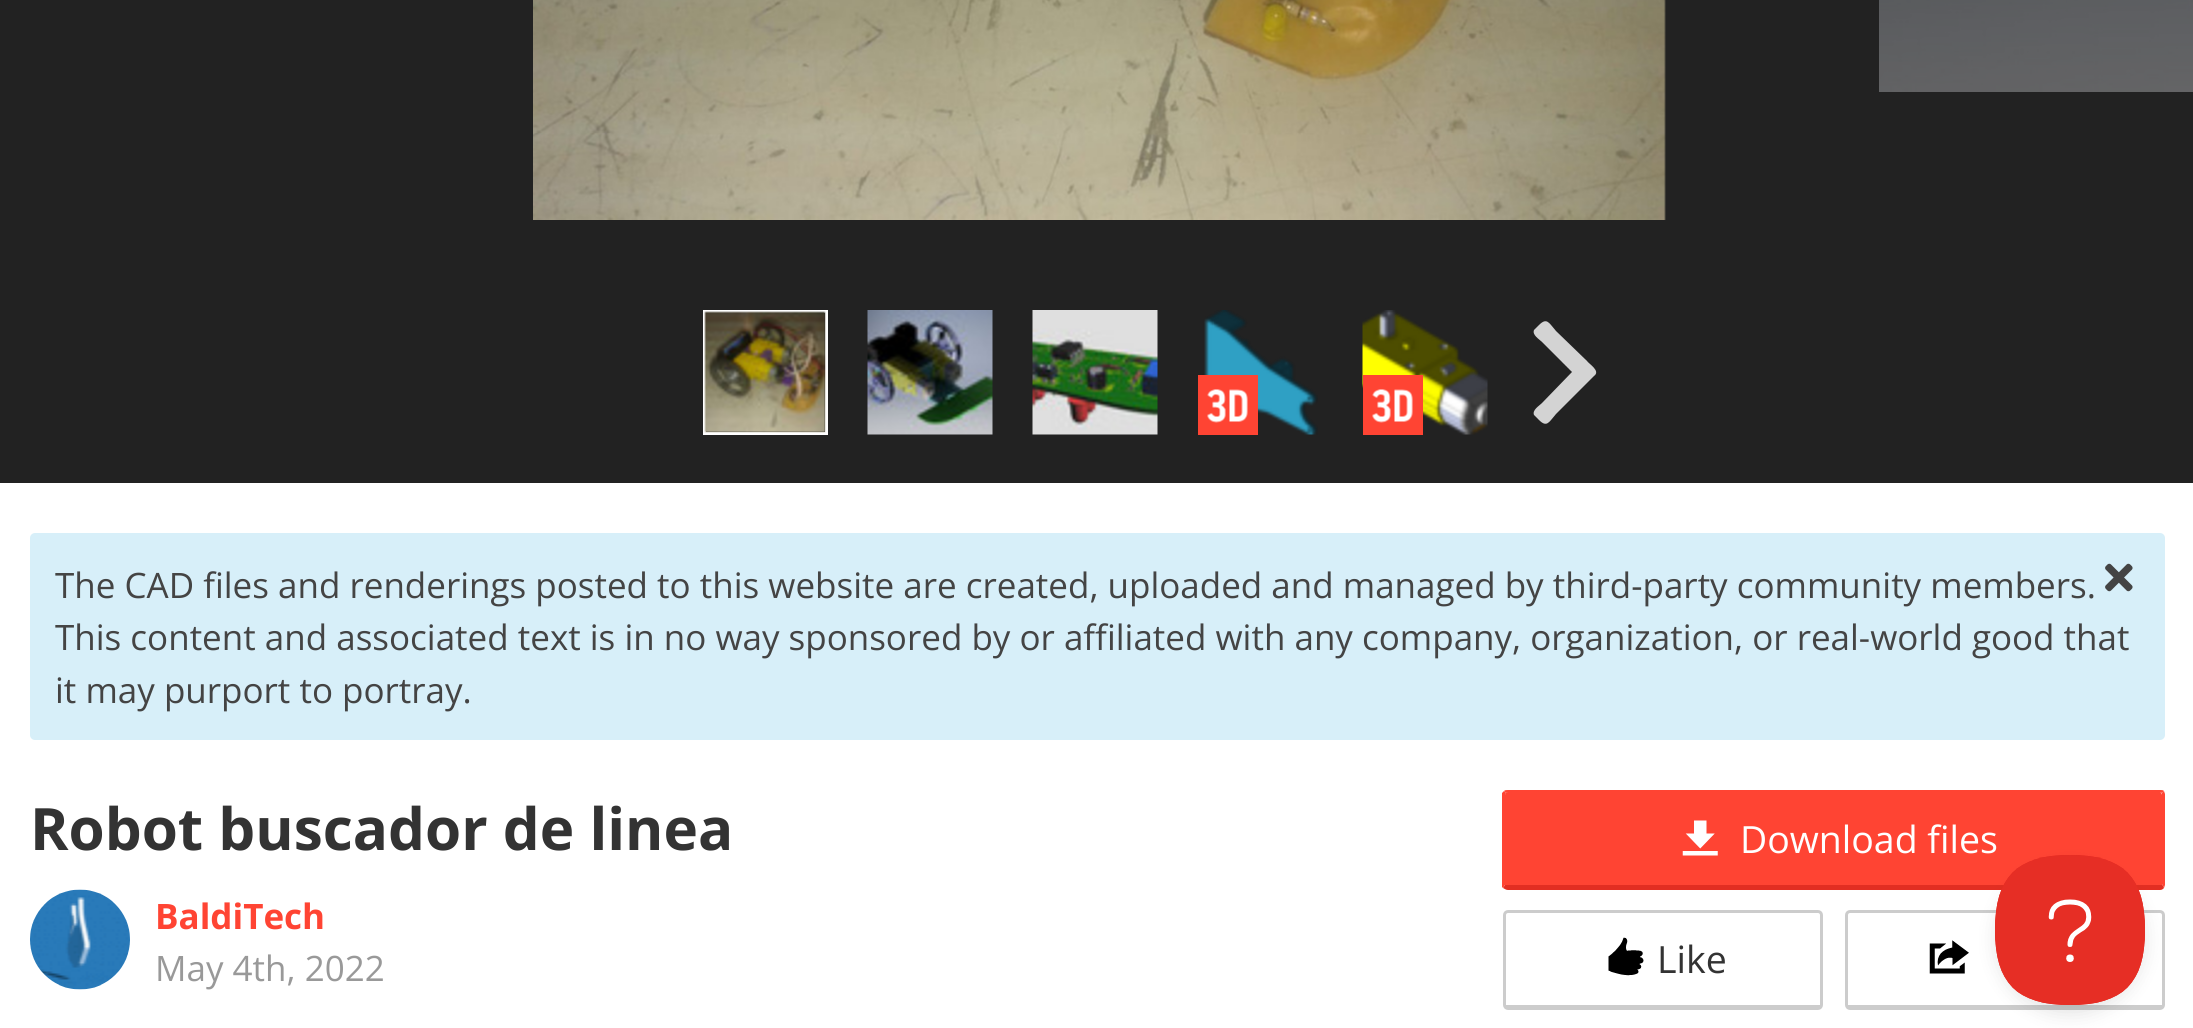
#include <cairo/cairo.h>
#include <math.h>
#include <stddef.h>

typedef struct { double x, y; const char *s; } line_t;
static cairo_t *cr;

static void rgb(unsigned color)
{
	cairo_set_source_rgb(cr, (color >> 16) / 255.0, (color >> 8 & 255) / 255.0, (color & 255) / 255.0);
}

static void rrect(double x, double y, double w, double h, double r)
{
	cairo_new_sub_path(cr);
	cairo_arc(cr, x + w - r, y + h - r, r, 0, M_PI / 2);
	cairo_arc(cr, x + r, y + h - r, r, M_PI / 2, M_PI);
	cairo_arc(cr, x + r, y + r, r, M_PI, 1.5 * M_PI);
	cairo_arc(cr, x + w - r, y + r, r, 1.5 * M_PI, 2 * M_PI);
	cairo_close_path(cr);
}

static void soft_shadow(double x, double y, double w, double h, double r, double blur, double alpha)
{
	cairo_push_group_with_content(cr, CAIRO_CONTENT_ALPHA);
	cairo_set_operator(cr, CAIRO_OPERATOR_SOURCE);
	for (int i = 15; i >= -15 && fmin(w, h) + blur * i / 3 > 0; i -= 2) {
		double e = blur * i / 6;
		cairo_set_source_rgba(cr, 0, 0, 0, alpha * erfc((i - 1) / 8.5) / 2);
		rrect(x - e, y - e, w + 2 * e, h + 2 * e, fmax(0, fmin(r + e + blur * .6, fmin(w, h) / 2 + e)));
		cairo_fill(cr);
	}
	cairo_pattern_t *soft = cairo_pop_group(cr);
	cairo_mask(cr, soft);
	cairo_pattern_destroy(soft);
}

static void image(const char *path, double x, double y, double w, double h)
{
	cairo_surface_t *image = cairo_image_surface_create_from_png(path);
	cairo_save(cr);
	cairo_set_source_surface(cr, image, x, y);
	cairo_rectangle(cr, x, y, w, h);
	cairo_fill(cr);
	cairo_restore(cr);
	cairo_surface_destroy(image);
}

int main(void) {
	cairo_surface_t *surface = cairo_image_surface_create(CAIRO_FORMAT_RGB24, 2193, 1028);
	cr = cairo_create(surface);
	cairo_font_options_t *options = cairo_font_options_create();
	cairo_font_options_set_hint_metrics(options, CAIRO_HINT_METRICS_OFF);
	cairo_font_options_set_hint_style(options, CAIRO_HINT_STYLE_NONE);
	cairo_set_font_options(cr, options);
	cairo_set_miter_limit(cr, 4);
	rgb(0xffffff);
	cairo_paint(cr);
	rgb(0x222222);
	cairo_rectangle(cr, 0, 0, 2193, 483);
	cairo_fill(cr);
	image("img/1.png", 533, 0, 1133, 220);
	image("img/2.png", 1879, 0, 314, 92);
	cairo_rectangle(cr, 704.5, 311.5, 122, 122);
	rgb(0xffffff);
	cairo_set_line_width(cr, 3);
	cairo_stroke(cr);
	image("img/3.png", 704, 311, 122, 122);
	image("img/4.png", 867, 310, 126, 125);
	image("img/5.png", 1032, 310, 126, 125);
	image("img/6.png", 1204, 310, 114, 125);
	rgb(0xff4433);
	cairo_rectangle(cr, 1198, 375, 60, 60);
	cairo_fill(cr);
	image("img/7.png", 1207, 389, 41, 34);
	image("img/8.png", 1362, 310, 126, 125);
	cairo_rectangle(cr, 1363, 375, 60, 60);
	cairo_fill(cr);
	image("img/9.png", 1372, 389, 41, 34);
	rgb(0xd3d3d3);
	cairo_new_path(cr);
	cairo_move_to(cr, 1594, 376);
	cairo_line_to(cr, 1556, 414);
	cairo_curve_to(cr, 1549, 422, 1547, 428, 1539, 420);
	cairo_line_to(cr, 1534, 415);
	cairo_curve_to(cr, 1532, 410, 1539, 406, 1542, 403);
	cairo_line_to(cr, 1572, 372);
	cairo_line_to(cr, 1542, 342);
	cairo_curve_to(cr, 1539, 339, 1532, 335, 1534, 330);
	cairo_line_to(cr, 1539, 325);
	cairo_curve_to(cr, 1547, 317, 1549, 323, 1556, 331);
	cairo_line_to(cr, 1587, 361);
	cairo_curve_to(cr, 1589, 364, 1601, 371, 1594, 376);
	cairo_close_path(cr);
	cairo_fill(cr);
	rgb(0xd7eff9);
	rrect(30, 533, 2135, 207, 5);
	cairo_fill(cr);
	image("img/10.png", 2105, 563, 28, 29);
	image("img/11.png", 30, 889, 100, 101);
	rgb(0xff4433);
	cairo_new_path(cr);
	cairo_move_to(cr, 1508, 792);
	cairo_line_to(cr, 2160, 792);
	cairo_curve_to(cr, 2161, 792, 2162, 794, 2162, 795);
	cairo_line_to(cr, 2162, 885);
	cairo_line_to(cr, 1505, 885);
	cairo_line_to(cr, 1505, 795);
	cairo_curve_to(cr, 1505, 794, 1506, 792, 1508, 792);
	cairo_close_path(cr);
	cairo_fill(cr);
	cairo_new_path(cr);
	cairo_move_to(cr, 1508, 790);
	cairo_curve_to(cr, 1506, 790, 1505, 790, 1504, 791);
	cairo_line_to(cr, 1506, 793);
	cairo_line_to(cr, 1508, 792);
	cairo_line_to(cr, 2160, 792);
	cairo_line_to(cr, 2162, 793);
	cairo_line_to(cr, 2164, 791);
	cairo_curve_to(cr, 2163, 790, 2162, 790, 2160, 790);
	cairo_close_path(cr);
	cairo_fill(cr);
	cairo_new_path(cr);
	cairo_move_to(cr, 2165, 885);
	cairo_line_to(cr, 2165, 794);
	cairo_line_to(cr, 2164, 791);
	cairo_line_to(cr, 2162, 793);
	cairo_line_to(cr, 2162, 795);
	cairo_line_to(cr, 2162, 884);
	cairo_line_to(cr, 2164, 888);
	cairo_close_path(cr);
	cairo_fill(cr);
	rgb(0xe22e22);
	cairo_new_path(cr);
	cairo_move_to(cr, 1508, 890);
	cairo_line_to(cr, 2160, 890);
	cairo_curve_to(cr, 2162, 890, 2163, 889, 2164, 888);
	cairo_line_to(cr, 2162, 884);
	cairo_line_to(cr, 2162, 885);
	cairo_line_to(cr, 1505, 885);
	cairo_line_to(cr, 1503, 888);
	cairo_curve_to(cr, 1505, 889, 1506, 890, 1508, 890);
	cairo_close_path(cr);
	cairo_fill(cr);
	rgb(0xff4433);
	cairo_new_path(cr);
	cairo_move_to(cr, 1502, 793);
	cairo_line_to(cr, 1504, 791);
	cairo_line_to(cr, 1506, 793);
	cairo_line_to(cr, 1505, 795);
	cairo_line_to(cr, 1505, 885);
	cairo_line_to(cr, 1503, 888);
	cairo_line_to(cr, 1502, 887);
	cairo_close_path(cr);
	cairo_fill(cr);
	image("img/12.png", 1682, 820, 36, 36);
	rrect(1504.5, 911.5, 317, 97, 3.5);
	rgb(0xcccccc);
	cairo_stroke(cr);
	cairo_rectangle(cr, 1505, 1005, 315, 2);
	cairo_fill(cr);
	image("img/13.png", 1608, 937, 36, 39);
	rrect(1846.5, 911.5, 317, 97, 3.5);
	cairo_stroke(cr);
	cairo_rectangle(cr, 1848, 1005, 315, 2);
	cairo_fill(cr);
	image("img/14.png", 1929, 940, 40, 34);
	rgb(0x000000);
	soft_shadow(1995, 865, 150, 150, 75, 9, 0.1);
	image("img/15.png", 1995, 855, 150, 150);
	cairo_select_font_face(cr, "Open Sans", CAIRO_FONT_SLANT_NORMAL, CAIRO_FONT_WEIGHT_NORMAL);
	cairo_set_font_size(cr, 35);
	rgb(0x444444);
	{
		static const line_t items[] = {
			{55, 598, "The CAD files and renderings posted to this website are created, uploaded and managed by third-party community members."},
			{55, 650, "This content and associated text is in no way sponsored by or affiliated with any company, organization, or real-world good that"},
			{55, 703, "it may purport to portray."},
		};
		for (size_t i = 0; i < sizeof items / sizeof *items; i++) {
			cairo_move_to(cr, items[i].x, items[i].y);
			cairo_show_text(cr, items[i].s);
		}
	}
	cairo_select_font_face(cr, "Open Sans", CAIRO_FONT_SLANT_NORMAL, CAIRO_FONT_WEIGHT_BOLD);
	cairo_set_font_size(cr, 58.4);
	rgb(0x333333);
	cairo_move_to(cr, 30, 850);
	cairo_show_text(cr, "Robot buscador de linea");
	cairo_set_font_size(cr, 35);
	rgb(0xff4433);
	cairo_move_to(cr, 155, 929);
	cairo_show_text(cr, "BaldiTech");
	cairo_select_font_face(cr, "Open Sans", CAIRO_FONT_SLANT_NORMAL, CAIRO_FONT_WEIGHT_NORMAL);
	rgb(0x999999);
	cairo_move_to(cr, 155, 981);
	cairo_show_text(cr, "May 4th, 2022");
	cairo_set_font_size(cr, 37.5);
	rgb(0xffffff);
	cairo_move_to(cr, 1740, 853);
	cairo_show_text(cr, "Download files");
	rgb(0x333333);
	cairo_move_to(cr, 1657, 973);
	cairo_show_text(cr, "Like");
	cairo_surface_write_to_png(surface, "page.png");
	cairo_font_options_destroy(options);
	cairo_destroy(cr);
	cairo_surface_destroy(surface);
	return 0;
}
